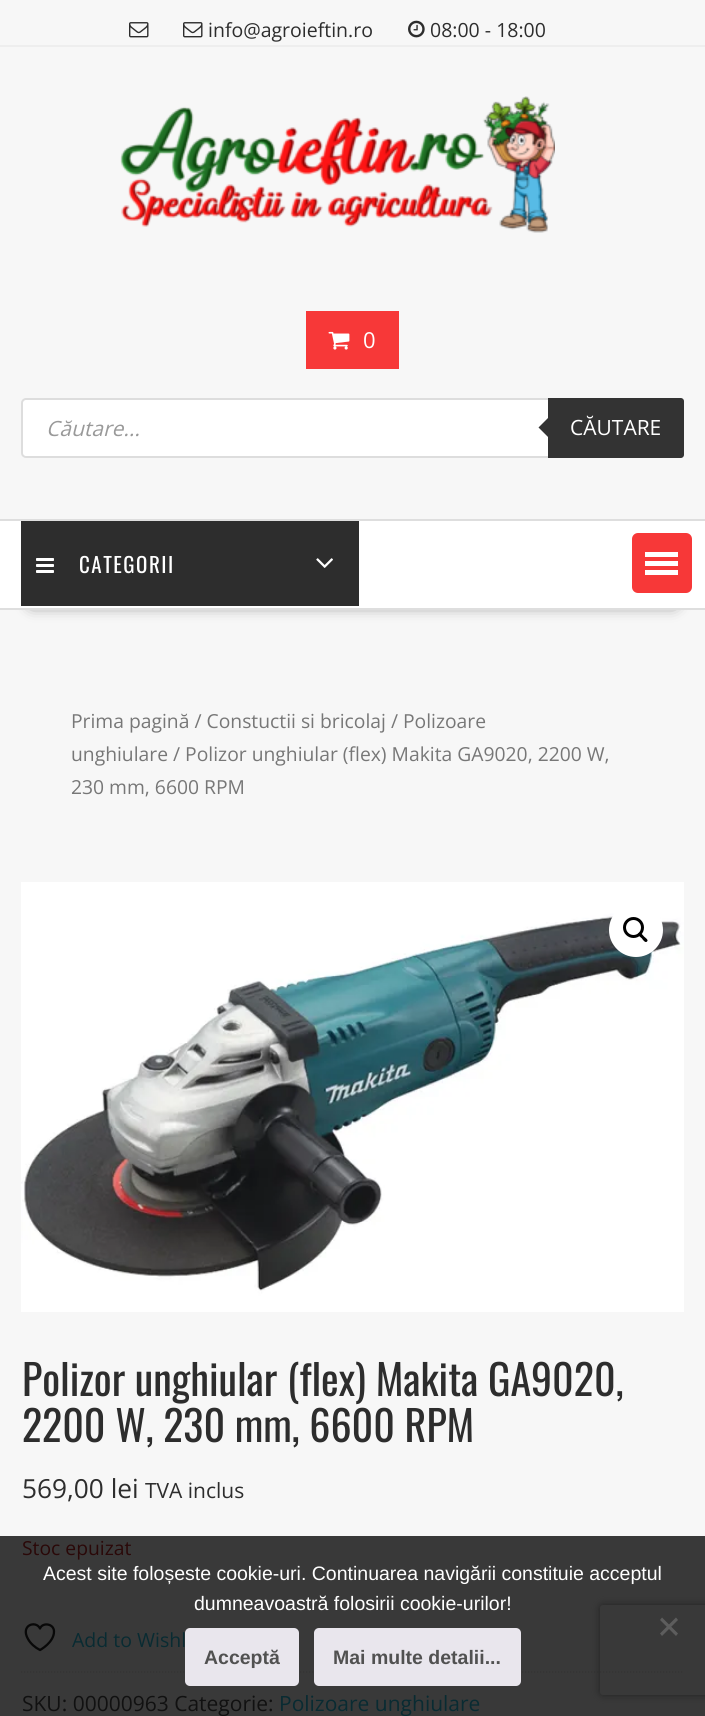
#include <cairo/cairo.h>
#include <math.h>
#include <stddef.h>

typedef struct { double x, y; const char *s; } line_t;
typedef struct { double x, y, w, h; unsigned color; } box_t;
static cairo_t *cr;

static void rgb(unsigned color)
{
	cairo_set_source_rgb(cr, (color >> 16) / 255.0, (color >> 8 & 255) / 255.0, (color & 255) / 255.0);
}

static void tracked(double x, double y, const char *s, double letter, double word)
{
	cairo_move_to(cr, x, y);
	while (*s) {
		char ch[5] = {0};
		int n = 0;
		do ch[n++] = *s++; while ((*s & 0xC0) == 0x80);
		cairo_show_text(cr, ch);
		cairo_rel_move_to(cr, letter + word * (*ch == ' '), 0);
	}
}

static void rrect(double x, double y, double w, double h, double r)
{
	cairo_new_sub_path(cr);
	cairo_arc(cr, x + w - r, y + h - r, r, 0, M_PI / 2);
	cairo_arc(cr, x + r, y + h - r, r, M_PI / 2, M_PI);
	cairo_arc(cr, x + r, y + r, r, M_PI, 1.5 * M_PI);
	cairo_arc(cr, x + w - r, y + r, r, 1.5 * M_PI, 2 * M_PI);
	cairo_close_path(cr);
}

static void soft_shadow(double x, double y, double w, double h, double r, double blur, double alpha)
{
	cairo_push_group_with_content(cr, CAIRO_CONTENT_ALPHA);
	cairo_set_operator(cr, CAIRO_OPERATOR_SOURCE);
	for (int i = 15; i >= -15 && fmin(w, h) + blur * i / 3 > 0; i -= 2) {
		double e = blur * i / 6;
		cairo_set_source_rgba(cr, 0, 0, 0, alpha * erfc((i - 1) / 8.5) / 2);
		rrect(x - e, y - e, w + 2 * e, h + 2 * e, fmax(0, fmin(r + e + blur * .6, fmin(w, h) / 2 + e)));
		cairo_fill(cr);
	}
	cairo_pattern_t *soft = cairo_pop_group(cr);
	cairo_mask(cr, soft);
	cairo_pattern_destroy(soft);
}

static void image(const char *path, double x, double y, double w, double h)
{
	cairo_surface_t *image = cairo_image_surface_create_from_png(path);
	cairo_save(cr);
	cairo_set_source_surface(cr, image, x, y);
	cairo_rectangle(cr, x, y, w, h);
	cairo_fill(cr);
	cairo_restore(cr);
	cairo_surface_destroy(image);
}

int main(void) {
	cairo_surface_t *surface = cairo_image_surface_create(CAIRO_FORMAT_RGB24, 705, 1716);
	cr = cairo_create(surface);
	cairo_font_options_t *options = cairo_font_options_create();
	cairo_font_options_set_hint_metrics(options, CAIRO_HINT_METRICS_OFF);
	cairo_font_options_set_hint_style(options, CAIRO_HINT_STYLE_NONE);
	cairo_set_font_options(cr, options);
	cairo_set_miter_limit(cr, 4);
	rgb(0xf7f7f7);
	cairo_paint(cr);
	rgb(0x393939);
	cairo_rectangle(cr, 0, 1536, 705, 180);
	cairo_fill(cr);
	rgb(0xeeeeee);
	cairo_rectangle(cr, 0, 45, 705, 2);
	cairo_fill(cr);
	image("img/1.png", 129, 22, 20, 16);
	image("img/1.png", 183, 22, 20, 16);
	image("img/2.png", 408, 20, 17, 18);
	image("img/3.png", 120, 96, 435, 137);
	rgb(0xf73838);
	cairo_rectangle(cr, 306, 311, 93, 58);
	cairo_fill(cr);
	image("img/4.png", 328, 331, 22, 19);
	rgb(0xffffff);
	rrect(22, 399, 661, 58, 4);
	cairo_fill_preserve(cr);
	rgb(0xdddddd);
	cairo_stroke(cr);
	rgb(0x333333);
	cairo_new_path(cr);
	cairo_move_to(cr, 548, 398);
	cairo_line_to(cr, 681, 398);
	cairo_curve_to(cr, 682.5, 398, 684, 399.5, 684, 401);
	cairo_line_to(cr, 684, 455);
	cairo_curve_to(cr, 684, 456.5, 682.5, 458, 681, 458);
	cairo_line_to(cr, 548, 458);
	cairo_close_path(cr);
	cairo_fill(cr);
	cairo_new_path(cr);
	cairo_move_to(cr, 550.5, 415.5);
	cairo_line_to(cr, 550.5, 439.5);
	cairo_line_to(cr, 538.5, 427.5);
	cairo_close_path(cr);
	cairo_fill(cr);
	rgb(0x000000);
	soft_shadow(32, 576, 642, 27, 0, 8, 0.75);
	{
		static const box_t items[] = {
			{0, 521, 705, 87, 0xffffff},
			{0, 519, 705, 2, 0xdedede},
			{0, 608, 705, 2, 0xdedede},
			{21, 521, 338, 85, 0x2d2d2d},
		};
		for (size_t i = 0; i < sizeof items / sizeof *items; i++) {
			rgb(items[i].color);
			cairo_rectangle(cr, items[i].x, items[i].y, items[i].w, items[i].h);
			cairo_fill(cr);
		}
	}
	image("img/5.png", 36, 558, 18, 15);
	image("img/6.png", 316, 558, 17, 10);
	rgb(0xf73838);
	rrect(633, 534, 58, 58, 5);
	cairo_fill_preserve(cr);
	cairo_stroke(cr);
	{
		static const box_t items[] = {
			{645, 570, 33, 5, 0xffffff},
			{645, 561, 33, 5, 0xffffff},
			{645, 552, 33, 5, 0xffffff},
		};
		for (size_t i = 0; i < sizeof items / sizeof *items; i++) {
			rgb(items[i].color);
			cairo_rectangle(cr, items[i].x, items[i].y, items[i].w, items[i].h);
			cairo_fill(cr);
		}
	}
	image("img/7.png", 21, 882, 663, 430);
	cairo_arc(cr, 636, 930, 27, 0, 2 * M_PI);
	cairo_fill(cr);
	cairo_arc(cr, 633.5, 927.5, 9, 0, 2 * M_PI);
	rgb(0x000000);
	cairo_set_line_width(cr, 3);
	cairo_stroke(cr);
	cairo_new_path(cr);
	cairo_move_to(cr, 638.5, 933);
	cairo_curve_to(cr, 640.5, 931.5, 643, 935.5, 644, 936.5);
	cairo_curve_to(cr, 645, 937.5, 649, 940, 647, 941.5);
	cairo_curve_to(cr, 645.5, 943.5, 642.5, 939.5, 642, 938.5);
	cairo_curve_to(cr, 641, 937.5, 637, 935, 638.5, 933);
	cairo_close_path(cr);
	cairo_fill(cr);
	cairo_new_path(cr);
	cairo_move_to(cr, 54, 1631.5);
	cairo_curve_to(cr, 54, 1623.5, 42.5, 1622, 40, 1628.5);
	cairo_curve_to(cr, 36, 1620, 20, 1625, 28, 1639);
	cairo_curve_to(cr, 30.5, 1643.5, 35, 1647.5, 40, 1650);
	cairo_curve_to(cr, 40, 1650, 54, 1642.5, 54, 1631.5);
	cairo_close_path(cr);
	rgb(0x080808);
	cairo_set_line_width(cr, 2.3);
	cairo_set_line_cap(cr, CAIRO_LINE_CAP_ROUND);
	cairo_set_line_join(cr, CAIRO_LINE_JOIN_ROUND);
	cairo_stroke(cr);
	cairo_new_path(cr);
	cairo_move_to(cr, 21, 1672);
	cairo_line_to(cr, 684, 1672);
	rgb(0x343434);
	cairo_set_line_width(cr, 1.5);
	cairo_set_line_cap(cr, CAIRO_LINE_CAP_BUTT);
	cairo_set_line_join(cr, CAIRO_LINE_JOIN_MITER);
	cairo_set_dash(cr, (double[]){1.5, 1.5}, 2, 0);
	cairo_stroke(cr);
	cairo_save(cr);
	cairo_set_fill_rule(cr, CAIRO_FILL_RULE_EVEN_ODD);
	cairo_new_path(cr);
	cairo_move_to(cr, 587, 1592);
	cairo_line_to(cr, 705, 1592);
	cairo_line_to(cr, 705, 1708);
	cairo_line_to(cr, 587, 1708);
	cairo_close_path(cr);
	cairo_move_to(cr, 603, 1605);
	cairo_line_to(cr, 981, 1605);
	cairo_curve_to(cr, 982.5, 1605, 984, 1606.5, 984, 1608);
	cairo_line_to(cr, 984, 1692);
	cairo_curve_to(cr, 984, 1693.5, 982.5, 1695, 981, 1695);
	cairo_line_to(cr, 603, 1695);
	cairo_curve_to(cr, 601.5, 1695, 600, 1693.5, 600, 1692);
	cairo_line_to(cr, 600, 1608);
	cairo_curve_to(cr, 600, 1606.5, 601.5, 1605, 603, 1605);
	cairo_close_path(cr);
	cairo_clip(cr);
	rgb(0x222222);
	soft_shadow(600, 1605, 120, 90, 3, 4, 1);
	cairo_restore(cr);
	rgb(0x5d5d5d);
	cairo_new_path(cr);
	cairo_move_to(cr, 676, 1617.5);
	cairo_line_to(cr, 678, 1620);
	cairo_line_to(cr, 662, 1636);
	cairo_line_to(cr, 660, 1633.5);
	cairo_close_path(cr);
	cairo_fill(cr);
	cairo_new_path(cr);
	cairo_move_to(cr, 660, 1620);
	cairo_line_to(cr, 662, 1617.5);
	cairo_line_to(cr, 678, 1633.5);
	cairo_line_to(cr, 676, 1636);
	cairo_close_path(cr);
	cairo_fill(cr);
	rgb(0xe9e6ed);
	rrect(185, 1628, 114, 58, 5);
	cairo_fill(cr);
	rrect(314, 1628, 207, 58, 5);
	cairo_fill(cr);
	cairo_select_font_face(cr, "Open Sans", CAIRO_FONT_SLANT_NORMAL, CAIRO_FONT_WEIGHT_NORMAL);
	cairo_set_font_size(cr, 19.5);
	rgb(0x2d2d2d);
	cairo_move_to(cr, 208, 37);
	cairo_show_text(cr, "info@agroieftin.ro");
	cairo_move_to(cr, 430, 37);
	cairo_show_text(cr, "08:00 - 18:00");
	cairo_set_font_size(cr, 22);
	rgb(0xffffff);
	cairo_move_to(cr, 363, 348);
	cairo_show_text(cr, "0");
	cairo_select_font_face(cr, "Open Sans", CAIRO_FONT_SLANT_ITALIC, CAIRO_FONT_WEIGHT_NORMAL);
	cairo_set_font_size(cr, 21);
	rgb(0x999999);
	cairo_move_to(cr, 46, 436);
	cairo_show_text(cr, "Căutare...");
	cairo_select_font_face(cr, "Open Sans", CAIRO_FONT_SLANT_NORMAL, CAIRO_FONT_WEIGHT_NORMAL);
	rgb(0xffffff);
	cairo_move_to(cr, 570, 435);
	cairo_show_text(cr, "CĂUTARE");
	cairo_select_font_face(cr, "Oswald", CAIRO_FONT_SLANT_NORMAL, CAIRO_FONT_WEIGHT_NORMAL);
	tracked(79, 573, "CATEGORII", 1.5, 0);
	cairo_select_font_face(cr, "Open Sans", CAIRO_FONT_SLANT_NORMAL, CAIRO_FONT_WEIGHT_NORMAL);
	cairo_set_font_size(cr, 19.3);
	rgb(0x777777);
	{
		static const line_t items[] = {
			{71, 728, "Prima pagină / Constuctii si bricolaj / Polizoare"},
			{71, 761, "unghiulare / Polizor unghiular (flex) Makita GA9020, 2200 W,"},
			{71, 794, "230 mm, 6600 RPM"},
		};
		for (size_t i = 0; i < sizeof items / sizeof *items; i++) {
			cairo_move_to(cr, items[i].x, items[i].y);
			cairo_show_text(cr, items[i].s);
		}
	}
	cairo_select_font_face(cr, "Oswald", CAIRO_FONT_SLANT_NORMAL, CAIRO_FONT_WEIGHT_NORMAL);
	cairo_set_font_size(cr, 42);
	rgb(0x2d2d2d);
	cairo_move_to(cr, 22, 1396);
	cairo_show_text(cr, "Polizor unghiular (flex) Makita GA9020,");
	cairo_move_to(cr, 22, 1442);
	cairo_show_text(cr, "2200 W, 230 mm, 6600 RPM");
	cairo_select_font_face(cr, "Open Sans", CAIRO_FONT_SLANT_NORMAL, CAIRO_FONT_WEIGHT_NORMAL);
	cairo_set_font_size(cr, 26.25);
	cairo_move_to(cr, 22, 1498);
	cairo_show_text(cr, "569,00 lei");
	cairo_set_font_size(cr, 21);
	cairo_move_to(cr, 145, 1498);
	cairo_show_text(cr, "TVA inclus");
	cairo_set_font_size(cr, 19.3);
	rgb(0x2a0808);
	cairo_move_to(cr, 22, 1555);
	cairo_show_text(cr, "Stoc epuizat");
	cairo_set_font_size(cr, 19.5);
	rgb(0x092b32);
	cairo_move_to(cr, 72, 1647);
	cairo_show_text(cr, "Add to Wishl");
	cairo_set_font_size(cr, 21);
	rgb(0x111111);
	cairo_move_to(cr, 22, 1711);
	cairo_show_text(cr, "SKU: 00000963 Categorie:");
	rgb(0x092b32);
	cairo_move_to(cr, 279, 1711);
	cairo_show_text(cr, "Polizoare unghiulare");
	cairo_select_font_face(cr, "Liberation Sans", CAIRO_FONT_SLANT_NORMAL, CAIRO_FONT_WEIGHT_NORMAL);
	cairo_set_font_size(cr, 19.5);
	rgb(0xffffff);
	cairo_move_to(cr, 43, 1580);
	cairo_show_text(cr, "Acest site foloșeste cookie-uri. Continuarea navigării constituie acceptul");
	cairo_move_to(cr, 194, 1610);
	cairo_show_text(cr, "dumneavoastră folosirii cookie-urilor!");
	cairo_select_font_face(cr, "Liberation Sans", CAIRO_FONT_SLANT_NORMAL, CAIRO_FONT_WEIGHT_BOLD);
	rgb(0x515151);
	cairo_move_to(cr, 204, 1664);
	cairo_show_text(cr, "Acceptă");
	cairo_move_to(cr, 333, 1664);
	cairo_show_text(cr, "Mai multe detalii...");
	cairo_surface_write_to_png(surface, "page.png");
	cairo_font_options_destroy(options);
	cairo_destroy(cr);
	cairo_surface_destroy(surface);
	return 0;
}
